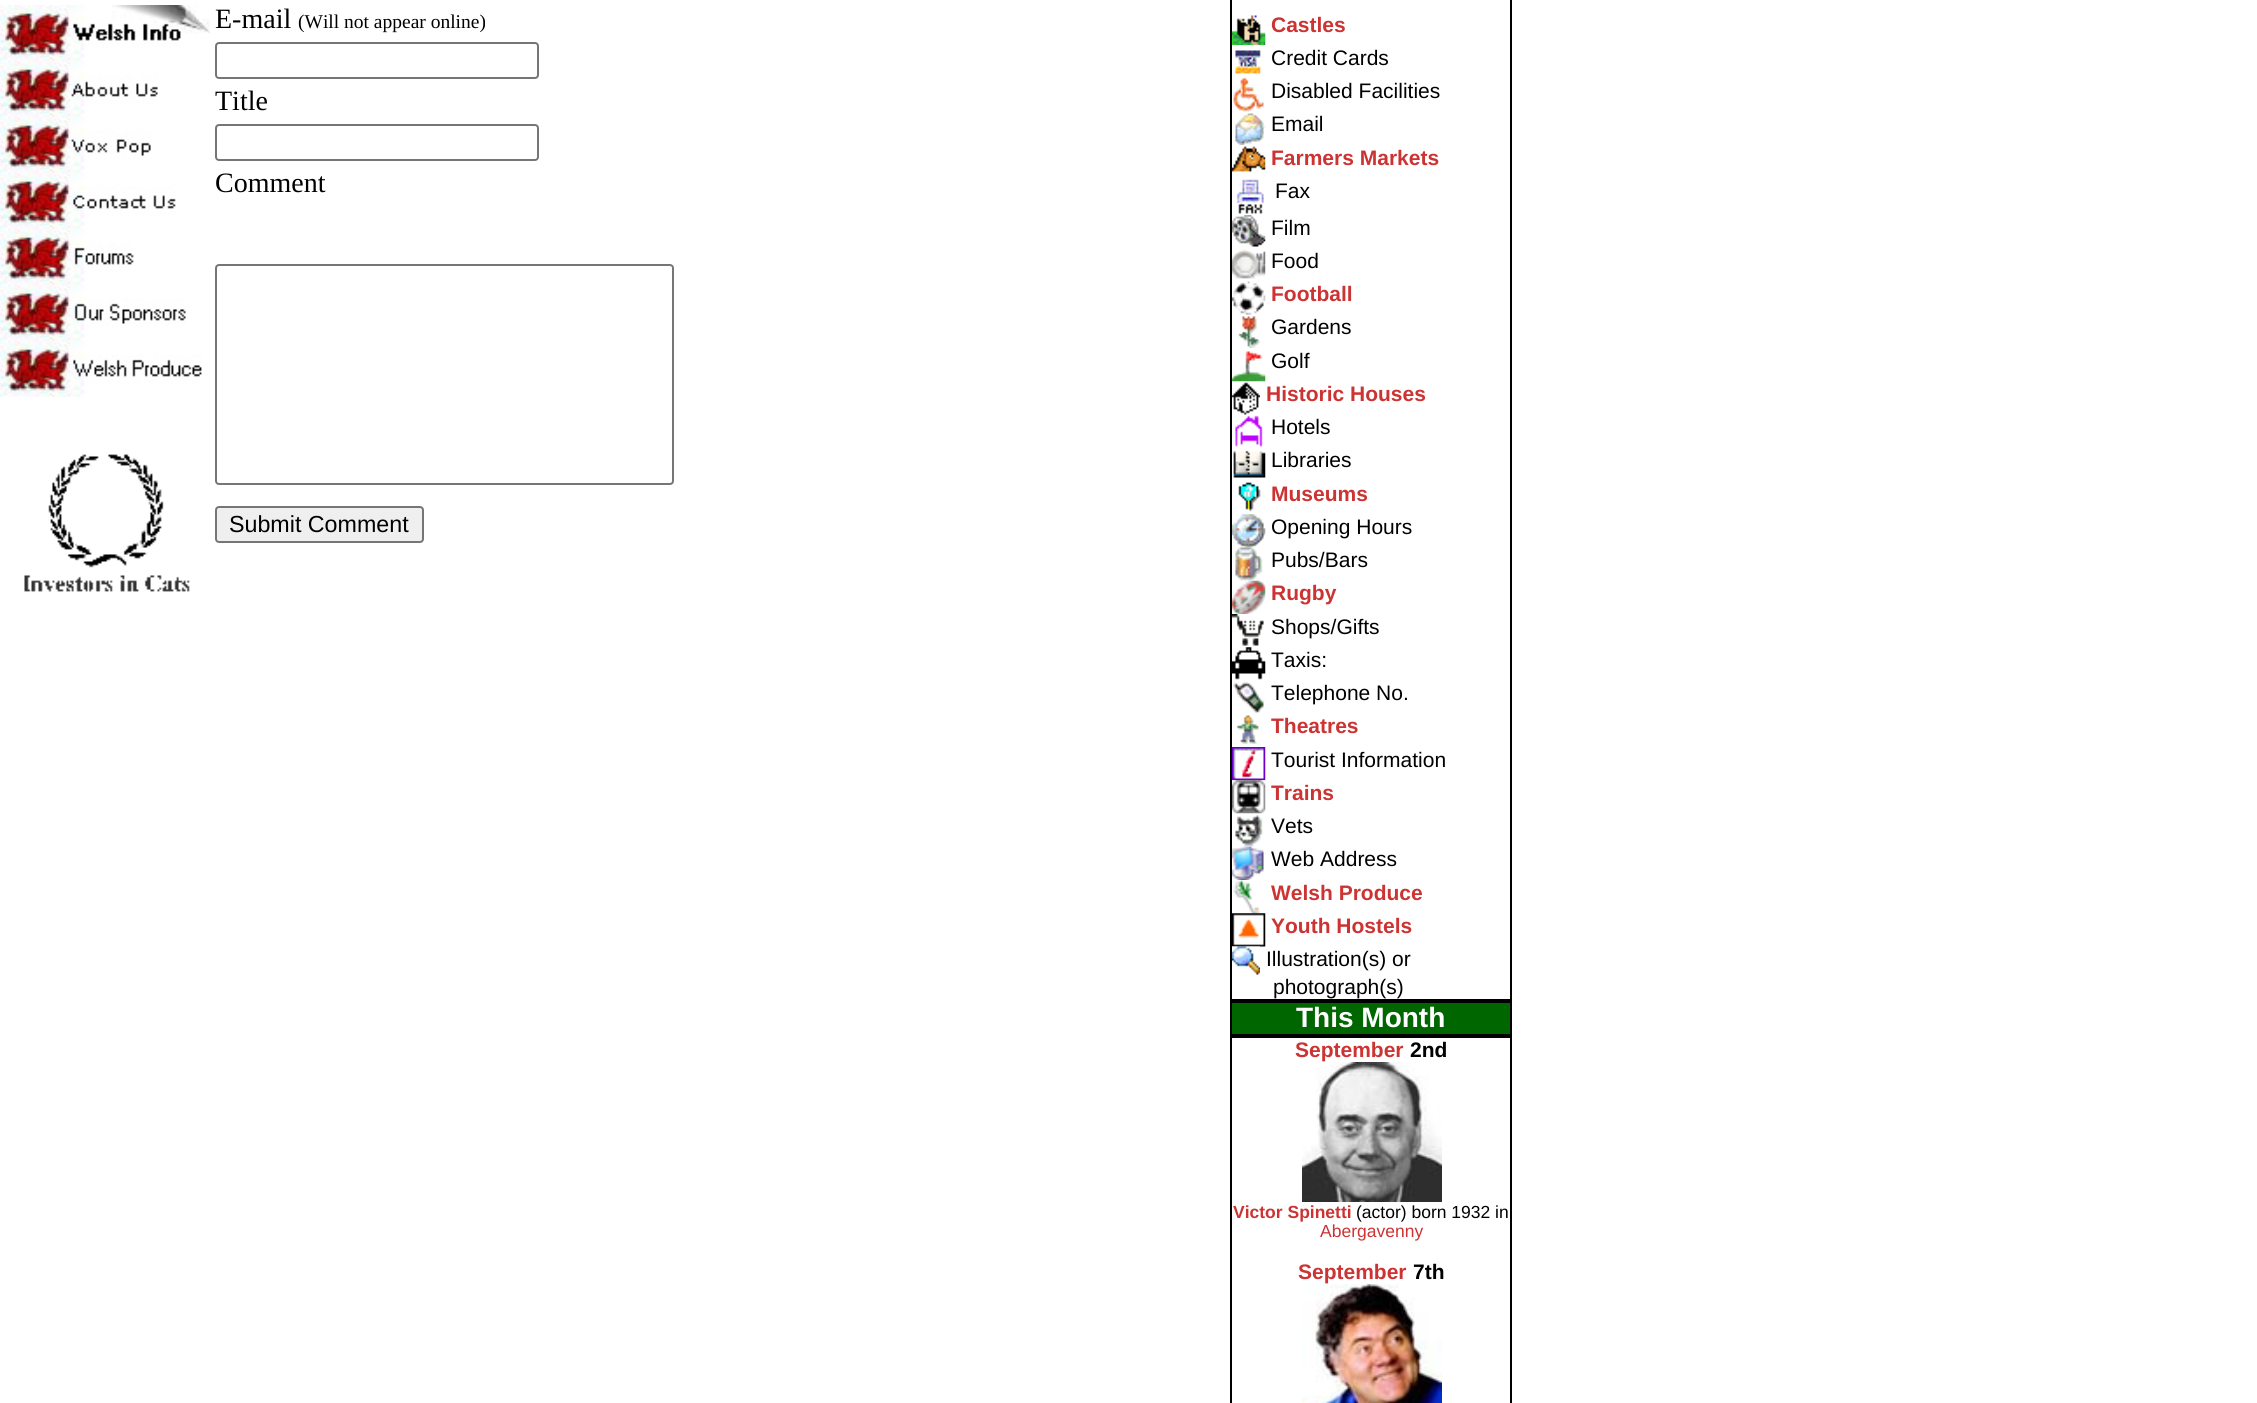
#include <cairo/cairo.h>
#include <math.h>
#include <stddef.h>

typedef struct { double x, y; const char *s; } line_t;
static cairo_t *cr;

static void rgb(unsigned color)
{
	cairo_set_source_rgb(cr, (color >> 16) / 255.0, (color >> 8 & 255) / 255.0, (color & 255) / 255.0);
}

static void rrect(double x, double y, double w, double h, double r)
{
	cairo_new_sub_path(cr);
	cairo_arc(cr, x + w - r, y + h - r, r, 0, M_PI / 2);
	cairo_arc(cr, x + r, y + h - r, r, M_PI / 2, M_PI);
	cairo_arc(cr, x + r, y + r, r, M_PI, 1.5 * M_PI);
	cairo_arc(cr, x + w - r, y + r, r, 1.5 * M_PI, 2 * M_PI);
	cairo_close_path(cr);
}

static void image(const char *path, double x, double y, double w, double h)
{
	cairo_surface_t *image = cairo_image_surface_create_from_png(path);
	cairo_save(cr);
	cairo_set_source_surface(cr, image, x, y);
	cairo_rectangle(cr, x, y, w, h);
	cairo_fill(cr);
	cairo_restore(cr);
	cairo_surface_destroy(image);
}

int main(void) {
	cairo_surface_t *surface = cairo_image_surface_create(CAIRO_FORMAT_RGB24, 2257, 1403);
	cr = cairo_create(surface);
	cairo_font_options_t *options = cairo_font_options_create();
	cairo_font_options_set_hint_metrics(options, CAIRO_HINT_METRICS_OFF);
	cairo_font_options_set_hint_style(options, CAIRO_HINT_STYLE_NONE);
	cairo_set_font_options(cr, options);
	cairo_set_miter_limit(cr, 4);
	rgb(0xffffff);
	cairo_paint(cr);
	image("img/1.png", 0, 5, 210, 56);
	image("img/2.png", 0, 61, 158, 56);
	image("img/3.png", 0, 117, 151, 56);
	image("img/4.png", 0, 173, 176, 56);
	image("img/5.png", 0, 229, 134, 56);
	image("img/6.png", 0, 285, 186, 56);
	image("img/7.png", 0, 341, 202, 56);
	image("img/8.png", 24, 453, 166, 139);
	rrect(216, 43, 322, 35, 3);
	rgb(0x767676);
	cairo_stroke(cr);
	rrect(216, 125, 322, 35, 3);
	cairo_stroke(cr);
	rrect(216, 265, 457, 219, 3);
	cairo_stroke(cr);
	rgb(0xefefef);
	rrect(216, 507, 207, 35, 3);
	cairo_fill_preserve(cr);
	rgb(0x767676);
	cairo_stroke(cr);
	cairo_rectangle(cr, 1231, -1, 280, 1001);
	rgb(0x000000);
	cairo_stroke(cr);
	image("img/9.png", 1232, 15, 34, 31);
	image("img/10.png", 1232, 45, 33, 29);
	image("img/11.png", 1233, 78, 31, 34);
	image("img/12.png", 1235, 111, 31, 34);
	image("img/13.png", 1232, 146, 34, 26);
	image("img/14.png", 1236, 179, 28, 35);
	image("img/15.png", 1232, 215, 34, 32);
	image("img/16.png", 1232, 249, 34, 30);
	image("img/17.png", 1232, 281, 34, 34);
	image("img/18.png", 1238, 314, 23, 34);
	image("img/19.png", 1232, 351, 34, 31);
	image("img/20.png", 1232, 382, 28, 33);
	image("img/21.png", 1235, 415, 28, 32);
	image("img/22.png", 1233, 450, 33, 28);
	image("img/23.png", 1238, 482, 23, 30);
	image("img/24.png", 1232, 514, 34, 34);
	image("img/25.png", 1235, 547, 29, 34);
	image("img/26.png", 1232, 580, 34, 34);
	image("img/27.png", 1232, 614, 32, 32);
	image("img/28.png", 1232, 647, 34, 33);
	image("img/29.png", 1233, 682, 32, 31);
	image("img/30.png", 1236, 715, 23, 29);
	image("img/31.png", 1232, 747, 34, 34);
	image("img/32.png", 1232, 780, 34, 34);
	image("img/33.png", 1234, 813, 29, 34);
	image("img/34.png", 1232, 846, 32, 34);
	image("img/35.png", 1233, 880, 28, 34);
	image("img/36.png", 1232, 913, 34, 34);
	image("img/37.png", 1232, 946, 28, 29);
	rgb(0x006600);
	cairo_rectangle(cr, 1231, 1002, 280, 33);
	cairo_fill_preserve(cr);
	rgb(0x000000);
	cairo_stroke(cr);
	cairo_rectangle(cr, 1231, 1037, 280, 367);
	cairo_stroke(cr);
	image("img/38.png", 1302, 1062, 140, 140);
	image("img/39.png", 1302, 1284, 140, 119);
	cairo_select_font_face(cr, "Liberation Serif", CAIRO_FONT_SLANT_NORMAL, CAIRO_FONT_WEIGHT_NORMAL);
	cairo_set_font_size(cr, 28);
	cairo_move_to(cr, 215, 28);
	cairo_show_text(cr, "E-mail");
	cairo_set_font_size(cr, 19.5);
	cairo_move_to(cr, 298, 28);
	cairo_show_text(cr, "(Will not appear online)");
	cairo_set_font_size(cr, 28);
	cairo_move_to(cr, 215, 110);
	cairo_show_text(cr, "Title");
	cairo_move_to(cr, 215, 192);
	cairo_show_text(cr, "Comment");
	cairo_select_font_face(cr, "Liberation Sans", CAIRO_FONT_SLANT_NORMAL, CAIRO_FONT_WEIGHT_NORMAL);
	cairo_set_font_size(cr, 23.25);
	cairo_move_to(cr, 229, 532);
	cairo_show_text(cr, "Submit Comment");
	cairo_select_font_face(cr, "Liberation Sans", CAIRO_FONT_SLANT_NORMAL, CAIRO_FONT_WEIGHT_BOLD);
	cairo_set_font_size(cr, 21);
	rgb(0xcc3333);
	cairo_move_to(cr, 1271, 32);
	cairo_show_text(cr, "Castles");
	cairo_select_font_face(cr, "Liberation Sans", CAIRO_FONT_SLANT_NORMAL, CAIRO_FONT_WEIGHT_NORMAL);
	rgb(0x000000);
	{
		static const line_t items[] = {
			{1271, 65, "Credit Cards"},
			{1271, 98, "Disabled Facilities"},
			{1271, 131, "Email"},
		};
		for (size_t i = 0; i < sizeof items / sizeof *items; i++) {
			cairo_move_to(cr, items[i].x, items[i].y);
			cairo_show_text(cr, items[i].s);
		}
	}
	cairo_select_font_face(cr, "Liberation Sans", CAIRO_FONT_SLANT_NORMAL, CAIRO_FONT_WEIGHT_BOLD);
	rgb(0xcc3333);
	cairo_move_to(cr, 1271, 165);
	cairo_show_text(cr, "Farmers Markets");
	cairo_select_font_face(cr, "Liberation Sans", CAIRO_FONT_SLANT_NORMAL, CAIRO_FONT_WEIGHT_NORMAL);
	rgb(0x000000);
	{
		static const line_t items[] = {
			{1275, 198, "Fax"},
			{1271, 235, "Film"},
			{1271, 268, "Food"},
		};
		for (size_t i = 0; i < sizeof items / sizeof *items; i++) {
			cairo_move_to(cr, items[i].x, items[i].y);
			cairo_show_text(cr, items[i].s);
		}
	}
	cairo_select_font_face(cr, "Liberation Sans", CAIRO_FONT_SLANT_NORMAL, CAIRO_FONT_WEIGHT_BOLD);
	rgb(0xcc3333);
	cairo_move_to(cr, 1271, 301);
	cairo_show_text(cr, "Football");
	cairo_select_font_face(cr, "Liberation Sans", CAIRO_FONT_SLANT_NORMAL, CAIRO_FONT_WEIGHT_NORMAL);
	rgb(0x000000);
	cairo_move_to(cr, 1271, 334);
	cairo_show_text(cr, "Gardens");
	cairo_move_to(cr, 1271, 368);
	cairo_show_text(cr, "Golf");
	cairo_select_font_face(cr, "Liberation Sans", CAIRO_FONT_SLANT_NORMAL, CAIRO_FONT_WEIGHT_BOLD);
	rgb(0xcc3333);
	cairo_move_to(cr, 1266, 401);
	cairo_show_text(cr, "Historic Houses");
	cairo_select_font_face(cr, "Liberation Sans", CAIRO_FONT_SLANT_NORMAL, CAIRO_FONT_WEIGHT_NORMAL);
	rgb(0x000000);
	cairo_move_to(cr, 1271, 434);
	cairo_show_text(cr, "Hotels");
	cairo_move_to(cr, 1271, 467);
	cairo_show_text(cr, "Libraries");
	cairo_select_font_face(cr, "Liberation Sans", CAIRO_FONT_SLANT_NORMAL, CAIRO_FONT_WEIGHT_BOLD);
	rgb(0xcc3333);
	cairo_move_to(cr, 1271, 501);
	cairo_show_text(cr, "Museums");
	cairo_select_font_face(cr, "Liberation Sans", CAIRO_FONT_SLANT_NORMAL, CAIRO_FONT_WEIGHT_NORMAL);
	rgb(0x000000);
	cairo_move_to(cr, 1271, 534);
	cairo_show_text(cr, "Opening Hours");
	cairo_move_to(cr, 1271, 567);
	cairo_show_text(cr, "Pubs/Bars");
	cairo_select_font_face(cr, "Liberation Sans", CAIRO_FONT_SLANT_NORMAL, CAIRO_FONT_WEIGHT_BOLD);
	rgb(0xcc3333);
	cairo_move_to(cr, 1271, 600);
	cairo_show_text(cr, "Rugby");
	cairo_select_font_face(cr, "Liberation Sans", CAIRO_FONT_SLANT_NORMAL, CAIRO_FONT_WEIGHT_NORMAL);
	rgb(0x000000);
	{
		static const line_t items[] = {
			{1271, 634, "Shops/Gifts"},
			{1271, 667, "Taxis:"},
			{1271, 700, "Telephone No."},
		};
		for (size_t i = 0; i < sizeof items / sizeof *items; i++) {
			cairo_move_to(cr, items[i].x, items[i].y);
			cairo_show_text(cr, items[i].s);
		}
	}
	cairo_select_font_face(cr, "Liberation Sans", CAIRO_FONT_SLANT_NORMAL, CAIRO_FONT_WEIGHT_BOLD);
	rgb(0xcc3333);
	cairo_move_to(cr, 1271, 733);
	cairo_show_text(cr, "Theatres");
	cairo_select_font_face(cr, "Liberation Sans", CAIRO_FONT_SLANT_NORMAL, CAIRO_FONT_WEIGHT_NORMAL);
	rgb(0x000000);
	cairo_move_to(cr, 1271, 767);
	cairo_show_text(cr, "Tourist Information");
	cairo_select_font_face(cr, "Liberation Sans", CAIRO_FONT_SLANT_NORMAL, CAIRO_FONT_WEIGHT_BOLD);
	rgb(0xcc3333);
	cairo_move_to(cr, 1271, 800);
	cairo_show_text(cr, "Trains");
	cairo_select_font_face(cr, "Liberation Sans", CAIRO_FONT_SLANT_NORMAL, CAIRO_FONT_WEIGHT_NORMAL);
	rgb(0x000000);
	cairo_move_to(cr, 1271, 833);
	cairo_show_text(cr, "Vets");
	cairo_move_to(cr, 1271, 866);
	cairo_show_text(cr, "Web Address");
	cairo_select_font_face(cr, "Liberation Sans", CAIRO_FONT_SLANT_NORMAL, CAIRO_FONT_WEIGHT_BOLD);
	rgb(0xcc3333);
	cairo_move_to(cr, 1271, 900);
	cairo_show_text(cr, "Welsh Produce");
	cairo_move_to(cr, 1271, 933);
	cairo_show_text(cr, "Youth Hostels");
	cairo_select_font_face(cr, "Liberation Sans", CAIRO_FONT_SLANT_NORMAL, CAIRO_FONT_WEIGHT_NORMAL);
	rgb(0x000000);
	cairo_move_to(cr, 1266, 966);
	cairo_show_text(cr, "Illustration(s) or");
	cairo_move_to(cr, 1273, 994);
	cairo_show_text(cr, "photograph(s)");
	cairo_select_font_face(cr, "Liberation Sans", CAIRO_FONT_SLANT_NORMAL, CAIRO_FONT_WEIGHT_BOLD);
	cairo_set_font_size(cr, 28);
	rgb(0xffffff);
	cairo_move_to(cr, 1296, 1027);
	cairo_show_text(cr, "This Month");
	cairo_set_font_size(cr, 21);
	rgb(0xcc3333);
	cairo_move_to(cr, 1295, 1057);
	cairo_show_text(cr, "September");
	rgb(0x000000);
	cairo_move_to(cr, 1410, 1057);
	cairo_show_text(cr, "2nd");
	cairo_set_font_size(cr, 17.5);
	rgb(0xcc3333);
	cairo_move_to(cr, 1233, 1218);
	cairo_show_text(cr, "Victor Spinetti");
	cairo_select_font_face(cr, "Liberation Sans", CAIRO_FONT_SLANT_NORMAL, CAIRO_FONT_WEIGHT_NORMAL);
	rgb(0x000000);
	cairo_move_to(cr, 1356, 1218);
	cairo_show_text(cr, "(actor) born 1932 in");
	rgb(0xcc3333);
	cairo_move_to(cr, 1320, 1237);
	cairo_show_text(cr, "Abergavenny");
	cairo_select_font_face(cr, "Liberation Sans", CAIRO_FONT_SLANT_NORMAL, CAIRO_FONT_WEIGHT_BOLD);
	cairo_set_font_size(cr, 21);
	cairo_move_to(cr, 1298, 1279);
	cairo_show_text(cr, "September");
	rgb(0x000000);
	cairo_move_to(cr, 1413, 1279);
	cairo_show_text(cr, "7th");
	cairo_surface_write_to_png(surface, "page.png");
	cairo_font_options_destroy(options);
	cairo_destroy(cr);
	cairo_surface_destroy(surface);
	return 0;
}
